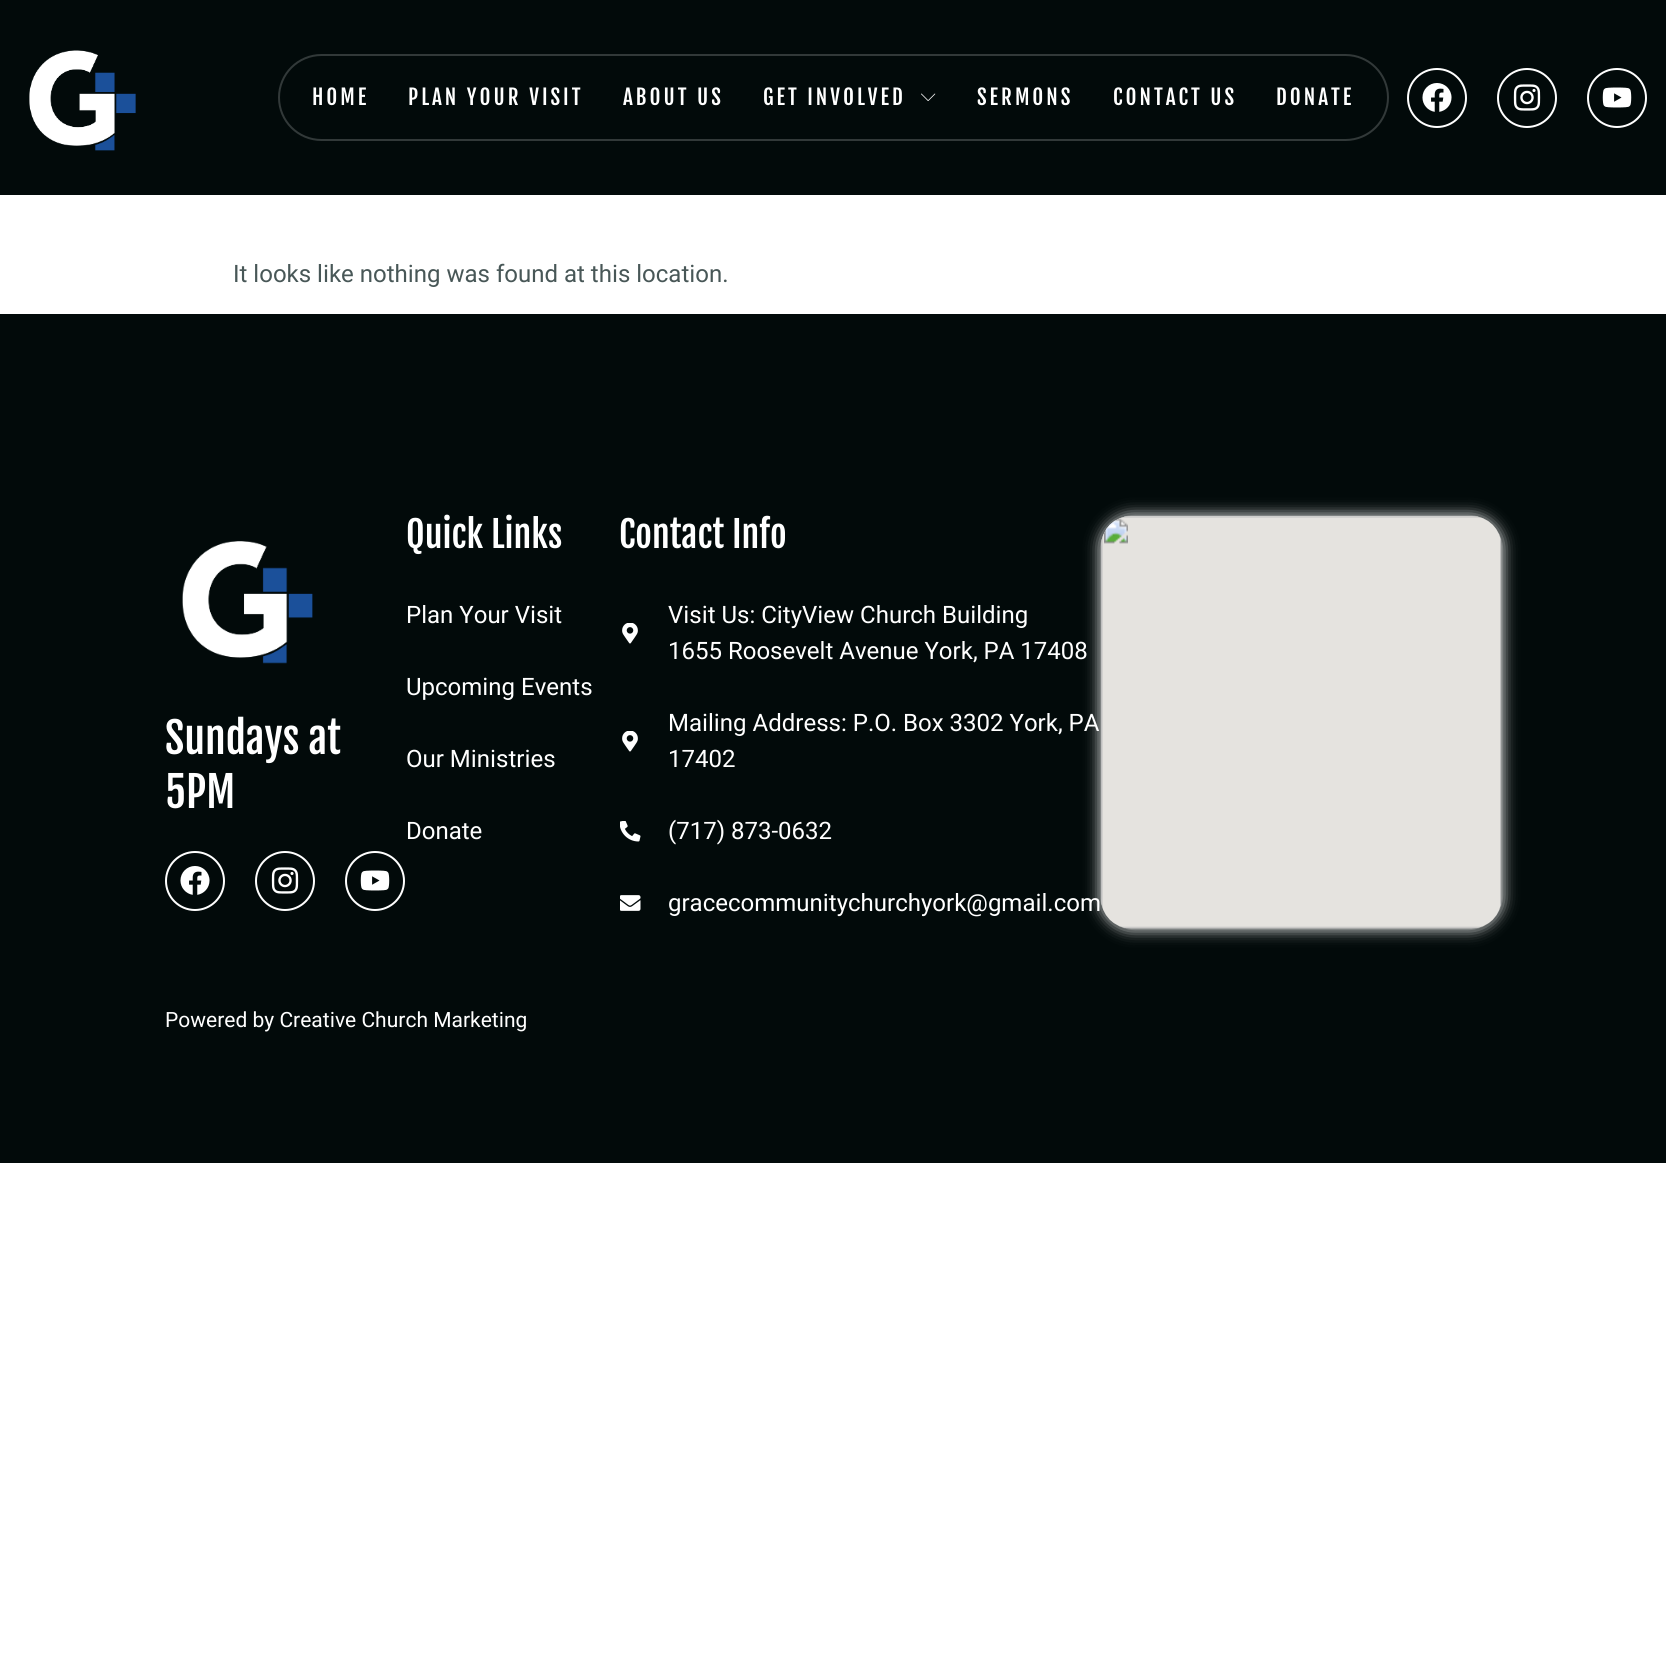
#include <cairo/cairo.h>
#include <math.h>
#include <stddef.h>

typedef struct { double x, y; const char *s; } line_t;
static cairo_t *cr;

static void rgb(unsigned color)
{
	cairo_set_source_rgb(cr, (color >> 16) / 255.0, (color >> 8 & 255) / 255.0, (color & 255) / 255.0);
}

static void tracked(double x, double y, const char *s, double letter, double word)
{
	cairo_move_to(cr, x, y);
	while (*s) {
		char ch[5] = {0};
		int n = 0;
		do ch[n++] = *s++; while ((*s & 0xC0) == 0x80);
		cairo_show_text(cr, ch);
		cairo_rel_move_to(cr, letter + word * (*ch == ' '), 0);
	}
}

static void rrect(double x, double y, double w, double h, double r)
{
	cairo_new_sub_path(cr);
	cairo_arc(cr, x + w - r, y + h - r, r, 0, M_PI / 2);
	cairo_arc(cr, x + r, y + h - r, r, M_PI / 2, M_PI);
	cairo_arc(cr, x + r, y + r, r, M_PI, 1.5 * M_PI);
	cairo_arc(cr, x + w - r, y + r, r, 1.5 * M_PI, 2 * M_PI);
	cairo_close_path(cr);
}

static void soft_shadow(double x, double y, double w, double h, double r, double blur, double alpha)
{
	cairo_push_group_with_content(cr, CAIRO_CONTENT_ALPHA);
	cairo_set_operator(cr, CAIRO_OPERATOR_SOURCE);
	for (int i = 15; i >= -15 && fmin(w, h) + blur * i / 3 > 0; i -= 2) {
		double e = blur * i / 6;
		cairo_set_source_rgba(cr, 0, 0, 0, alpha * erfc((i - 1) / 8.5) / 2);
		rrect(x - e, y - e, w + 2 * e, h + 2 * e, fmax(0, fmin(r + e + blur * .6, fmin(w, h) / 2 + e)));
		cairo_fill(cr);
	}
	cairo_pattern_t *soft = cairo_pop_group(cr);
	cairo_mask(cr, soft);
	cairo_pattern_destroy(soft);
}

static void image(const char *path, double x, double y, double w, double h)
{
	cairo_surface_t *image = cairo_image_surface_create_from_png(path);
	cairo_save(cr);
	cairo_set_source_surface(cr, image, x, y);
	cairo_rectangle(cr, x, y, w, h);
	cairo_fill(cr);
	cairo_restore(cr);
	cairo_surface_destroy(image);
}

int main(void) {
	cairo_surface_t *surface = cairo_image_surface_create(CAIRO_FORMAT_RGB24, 1666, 1677);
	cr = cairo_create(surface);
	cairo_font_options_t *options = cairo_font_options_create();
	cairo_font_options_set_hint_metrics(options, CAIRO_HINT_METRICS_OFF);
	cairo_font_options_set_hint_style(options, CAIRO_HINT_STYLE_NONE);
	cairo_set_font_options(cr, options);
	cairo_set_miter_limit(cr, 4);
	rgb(0xffffff);
	cairo_paint(cr);
	rgb(0x020a0a);
	cairo_rectangle(cr, 0, 0, 1666, 195);
	cairo_fill(cr);
	image("img/1.png", 29, 50, 107, 101);
	rrect(279, 55, 1109, 85, 42.5);
	rgb(0x323939);
	cairo_stroke(cr);
	image("img/2.png", 921, 93, 15, 8);
	cairo_arc(cr, 1437, 98, 29, 0, 2 * M_PI);
	rgb(0xffffff);
	cairo_stroke(cr);
	image("img/3.png", 1422, 83, 30, 29);
	cairo_arc(cr, 1527, 98, 29, 0, 2 * M_PI);
	cairo_stroke(cr);
	image("img/4.png", 1513, 84, 28, 27);
	cairo_arc(cr, 1617, 98, 29, 0, 2 * M_PI);
	cairo_stroke(cr);
	image("img/5.png", 1602, 87, 30, 21);
	rgb(0x020a0a);
	cairo_rectangle(cr, 0, 314, 1666, 849);
	cairo_fill(cr);
	image("img/6.png", 182, 541, 131, 123);
	cairo_arc(cr, 195, 881, 29, 0, 2 * M_PI);
	rgb(0xffffff);
	cairo_stroke(cr);
	image("img/3.png", 180, 866, 30, 29);
	cairo_arc(cr, 285, 881, 29, 0, 2 * M_PI);
	cairo_stroke(cr);
	image("img/4.png", 271, 867, 28, 27);
	cairo_arc(cr, 375, 881, 29, 0, 2 * M_PI);
	cairo_stroke(cr);
	image("img/5.png", 360, 870, 30, 21);
	image("img/7.png", 622, 623, 16, 21);
	image("img/7.png", 622, 731, 16, 21);
	image("img/8.png", 620, 821, 21, 21);
	image("img/9.png", 620, 895, 21, 16);
	rgb(0xffffff);
	soft_shadow(1101, 516, 401, 413, 30, 7.5, 0.98);
	image("img/10.png", 1101, 516, 401, 413);
	cairo_select_font_face(cr, "Fjalla One", CAIRO_FONT_SLANT_NORMAL, CAIRO_FONT_WEIGHT_NORMAL);
	cairo_set_font_size(cr, 21);
	rgb(0xffffff);
	{
		static const line_t items[] = {
			{312, 105, "HOME"},
			{408, 105, "PLAN YOUR VISIT"},
			{623, 105, "ABOUT US"},
			{763, 105, "GET INVOLVED"},
			{977, 105, "SERMONS"},
			{1113, 105, "CONTACT US"},
			{1276, 105, "DONATE"},
		};
		for (size_t i = 0; i < sizeof items / sizeof *items; i++) {
			tracked(items[i].x, items[i].y, items[i].s, 3, 0);
		}
	}
	cairo_select_font_face(cr, "Heebo", CAIRO_FONT_SLANT_NORMAL, CAIRO_FONT_WEIGHT_NORMAL);
	cairo_set_font_size(cr, 24);
	rgb(0x485757);
	cairo_move_to(cr, 233, 282);
	cairo_show_text(cr, "It looks like nothing was found at this location.");
	cairo_select_font_face(cr, "Fjalla One", CAIRO_FONT_SLANT_NORMAL, CAIRO_FONT_WEIGHT_NORMAL);
	cairo_set_font_size(cr, 42);
	rgb(0xffffff);
	cairo_move_to(cr, 165, 754);
	cairo_show_text(cr, "Sundays at");
	cairo_move_to(cr, 165, 808);
	cairo_show_text(cr, "5PM");
	cairo_set_font_size(cr, 36);
	cairo_move_to(cr, 406, 548);
	cairo_show_text(cr, "Quick Links");
	cairo_select_font_face(cr, "Heebo", CAIRO_FONT_SLANT_NORMAL, CAIRO_FONT_WEIGHT_NORMAL);
	cairo_set_font_size(cr, 24);
	{
		static const line_t items[] = {
			{406, 623, "Plan Your Visit"},
			{406, 695, "Upcoming Events"},
			{406, 767, "Our Ministries"},
			{406, 839, "Donate"},
		};
		for (size_t i = 0; i < sizeof items / sizeof *items; i++) {
			cairo_move_to(cr, items[i].x, items[i].y);
			cairo_show_text(cr, items[i].s);
		}
	}
	cairo_select_font_face(cr, "Fjalla One", CAIRO_FONT_SLANT_NORMAL, CAIRO_FONT_WEIGHT_NORMAL);
	cairo_set_font_size(cr, 36);
	cairo_move_to(cr, 619, 548);
	cairo_show_text(cr, "Contact Info");
	cairo_select_font_face(cr, "Heebo", CAIRO_FONT_SLANT_NORMAL, CAIRO_FONT_WEIGHT_NORMAL);
	cairo_set_font_size(cr, 24);
	{
		static const line_t items[] = {
			{668, 623, "Visit Us: CityView Church Building"},
			{668, 659, "1655 Roosevelt Avenue York, PA 17408"},
			{668, 731, "Mailing Address: P.O. Box 3302 York, PA"},
			{668, 767, "17402"},
			{668, 839, "(717) 873-0632"},
			{668, 911, "gracecommunitychurchyork@gmail.com"},
		};
		for (size_t i = 0; i < sizeof items / sizeof *items; i++) {
			cairo_move_to(cr, items[i].x, items[i].y);
			cairo_show_text(cr, items[i].s);
		}
	}
	cairo_set_font_size(cr, 21);
	cairo_move_to(cr, 165, 1027);
	cairo_show_text(cr, "Powered by Creative Church Marketing");
	cairo_surface_write_to_png(surface, "page.png");
	cairo_font_options_destroy(options);
	cairo_destroy(cr);
	cairo_surface_destroy(surface);
	return 0;
}
